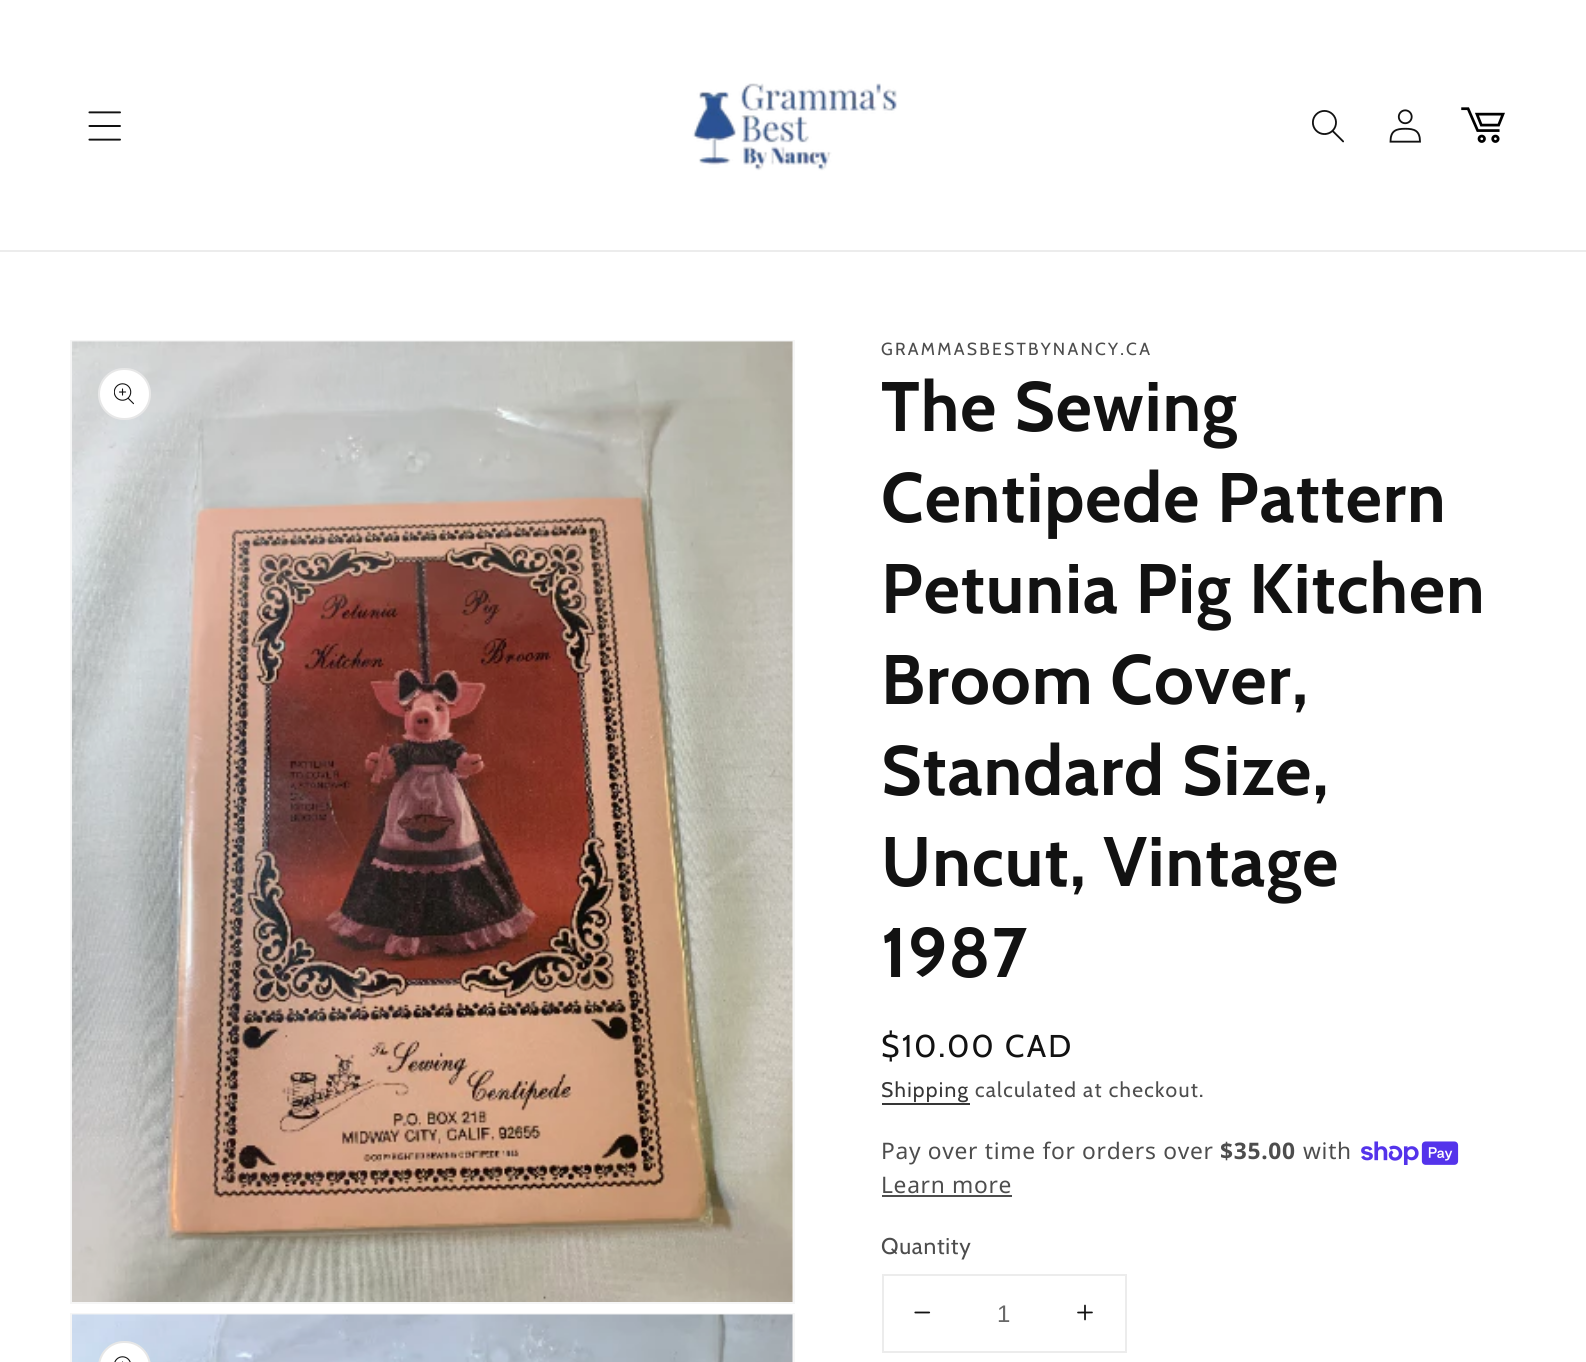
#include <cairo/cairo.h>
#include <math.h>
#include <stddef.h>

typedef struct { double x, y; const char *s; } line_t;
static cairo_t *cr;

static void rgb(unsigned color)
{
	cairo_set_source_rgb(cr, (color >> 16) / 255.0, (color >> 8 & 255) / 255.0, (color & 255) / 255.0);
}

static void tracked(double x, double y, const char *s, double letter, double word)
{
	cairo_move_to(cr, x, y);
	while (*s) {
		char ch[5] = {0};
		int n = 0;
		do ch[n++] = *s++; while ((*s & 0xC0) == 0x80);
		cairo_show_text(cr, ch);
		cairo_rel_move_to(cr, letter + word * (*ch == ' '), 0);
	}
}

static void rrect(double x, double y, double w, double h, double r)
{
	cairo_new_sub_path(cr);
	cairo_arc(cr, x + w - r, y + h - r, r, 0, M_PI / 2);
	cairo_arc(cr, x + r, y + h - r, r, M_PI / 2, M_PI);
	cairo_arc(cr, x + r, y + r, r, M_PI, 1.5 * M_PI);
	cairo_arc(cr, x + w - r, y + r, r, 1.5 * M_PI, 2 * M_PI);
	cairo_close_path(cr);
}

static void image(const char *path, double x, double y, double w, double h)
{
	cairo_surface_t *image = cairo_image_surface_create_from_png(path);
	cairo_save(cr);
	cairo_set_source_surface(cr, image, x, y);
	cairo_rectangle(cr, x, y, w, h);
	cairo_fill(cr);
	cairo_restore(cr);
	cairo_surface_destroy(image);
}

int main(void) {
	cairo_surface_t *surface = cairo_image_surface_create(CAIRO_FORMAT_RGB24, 1586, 1362);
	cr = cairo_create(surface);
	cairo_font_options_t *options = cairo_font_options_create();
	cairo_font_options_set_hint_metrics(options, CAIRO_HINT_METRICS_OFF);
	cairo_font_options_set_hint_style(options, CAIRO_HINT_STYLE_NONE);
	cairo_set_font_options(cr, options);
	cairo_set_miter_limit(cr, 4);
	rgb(0xffffff);
	cairo_paint(cr);
	rgb(0xececec);
	cairo_rectangle(cr, 0, 250, 1586, 2);
	cairo_fill(cr);
	image("img/1.png", 88, 111, 33, 30);
	image("img/2.png", 692, 83, 205, 88);
	image("img/3.png", 1312, 110, 32, 33);
	image("img/4.png", 1389, 109, 32, 34);
	image("img/5.png", 1461, 107, 44, 36);
	cairo_rectangle(cr, 71, 341, 723, 962);
	rgb(0xf6f6f6);
	cairo_stroke(cr);
	image("img/6.png", 71, 341, 722, 961);
	rgb(0xffffff);
	rrect(98, 368, 53, 52, 26);
	cairo_fill(cr);
	rrect(99, 369, 51, 50, 25);
	cairo_set_source_rgba(cr, 0.071, 0.071, 0.071, 0.1);
	cairo_stroke(cr);
	image("img/7.png", 114, 383, 20, 22);
	cairo_rectangle(cr, 71, 1314, 723, 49);
	rgb(0xf6f6f6);
	cairo_stroke(cr);
	image("img/8.png", 72, 1314, 721, 48);
	rgb(0xffffff);
	rrect(98, 1341, 53, 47, 26);
	cairo_fill(cr);
	rrect(99, 1342, 51, 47, 25);
	cairo_set_source_rgba(cr, 0.071, 0.071, 0.071, 0.1);
	cairo_stroke(cr);
	image("img/9.png", 114, 1356, 17, 6);
	rgb(0x363636);
	cairo_rectangle(cr, 882, 1103, 88, 2);
	cairo_fill(cr);
	image("img/10.png", 1361, 1141, 98, 24);
	rgb(0x4d4d4d);
	cairo_rectangle(cr, 882, 1195, 130, 2);
	cairo_fill(cr);
	cairo_rectangle(cr, 883, 1275, 243, 77);
	rgb(0xececec);
	cairo_stroke(cr);
	image("img/11.png", 914, 1311, 17, 3);
	image("img/12.png", 1077, 1304, 16, 17);
	cairo_select_font_face(cr, "Cabin", CAIRO_FONT_SLANT_NORMAL, CAIRO_FONT_WEIGHT_NORMAL);
	cairo_set_font_size(cr, 17.5);
	rgb(0x4d4d4d);
	tracked(881, 355, "GRAMMASBESTBYNANCY.CA", 2.25, 0);
	cairo_select_font_face(cr, "Cabin", CAIRO_FONT_SLANT_NORMAL, CAIRO_FONT_WEIGHT_BOLD);
	cairo_set_font_size(cr, 70);
	rgb(0x121212);
	{
		static const line_t items[] = {
			{881, 431, "The Sewing"},
			{881, 522, "Centipede Pattern"},
			{881, 613, "Petunia Pig Kitchen"},
			{881, 704, "Broom Cover,"},
			{881, 795, "Standard Size,"},
			{881, 886, "Uncut, Vintage"},
			{881, 977, "1987"},
		};
		for (size_t i = 0; i < sizeof items / sizeof *items; i++) {
			tracked(items[i].x, items[i].y, items[i].s, 1, 0);
		}
	}
	cairo_select_font_face(cr, "Cabin", CAIRO_FONT_SLANT_NORMAL, CAIRO_FONT_WEIGHT_NORMAL);
	cairo_set_font_size(cr, 31.5);
	tracked(881, 1057, "$10.00 CAD", 2.25, 0);
	cairo_set_font_size(cr, 21);
	rgb(0x363636);
	tracked(881, 1097, "Shipping", 1.25, 0);
	rgb(0x4d4d4d);
	tracked(975, 1097, "calculated at checkout.", 1.25, 0);
	cairo_select_font_face(cr, "Noto Sans", CAIRO_FONT_SLANT_NORMAL, CAIRO_FONT_WEIGHT_NORMAL);
	cairo_set_font_size(cr, 22.75);
	tracked(881, 1159, "Pay over time for orders over", 0.7, 0);
	cairo_select_font_face(cr, "Noto Sans", CAIRO_FONT_SLANT_NORMAL, CAIRO_FONT_WEIGHT_BOLD);
	tracked(1220, 1159, "$35.00", 0.7, 0);
	cairo_select_font_face(cr, "Noto Sans", CAIRO_FONT_SLANT_NORMAL, CAIRO_FONT_WEIGHT_NORMAL);
	tracked(1303, 1159, "with", 0.7, 0);
	tracked(881, 1193, "Learn more", 0.7, 0);
	cairo_select_font_face(cr, "Cabin", CAIRO_FONT_SLANT_NORMAL, CAIRO_FONT_WEIGHT_NORMAL);
	tracked(881, 1254, "Quantity", 0.7, 0);
	cairo_select_font_face(cr, "Liberation Sans", CAIRO_FONT_SLANT_NORMAL, CAIRO_FONT_WEIGHT_NORMAL);
	cairo_set_font_size(cr, 24);
	rgb(0x686868);
	cairo_move_to(cr, 997, 1322);
	cairo_show_text(cr, "1");
	cairo_surface_write_to_png(surface, "page.png");
	cairo_font_options_destroy(options);
	cairo_destroy(cr);
	cairo_surface_destroy(surface);
	return 0;
}
